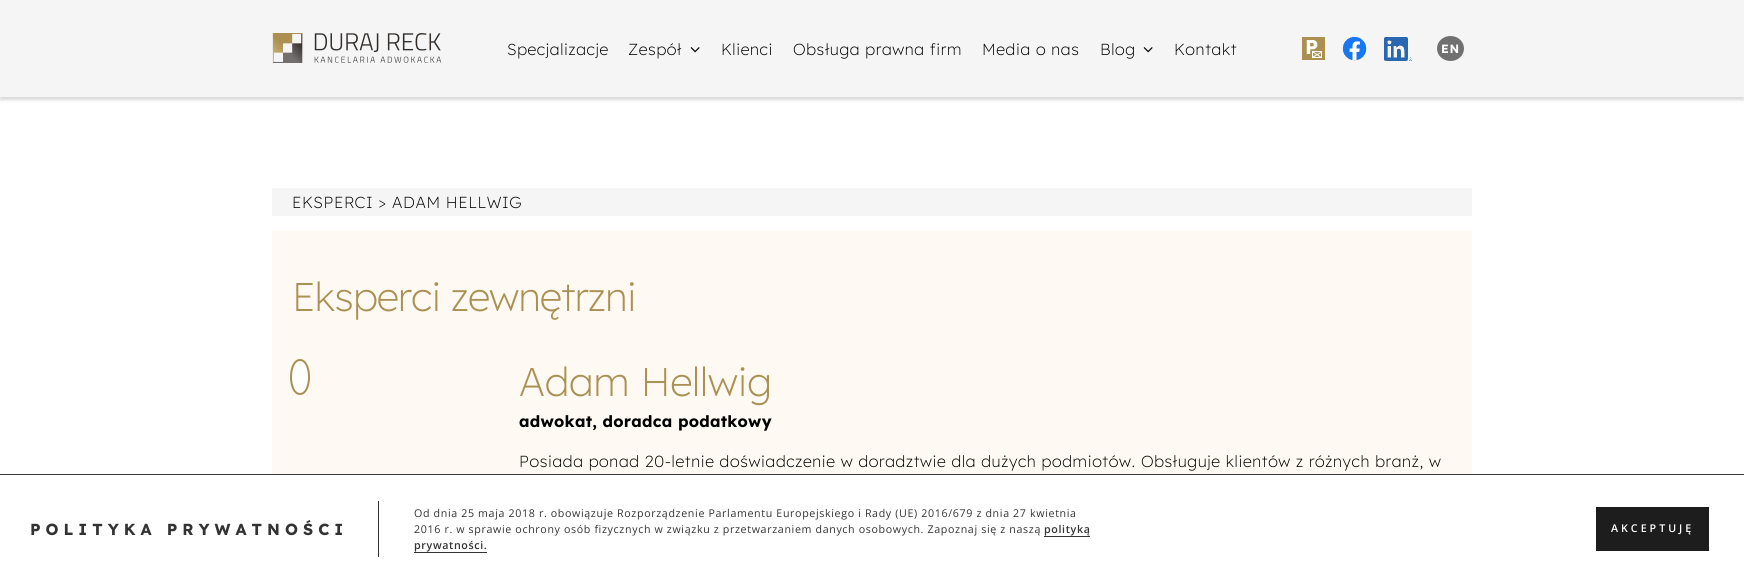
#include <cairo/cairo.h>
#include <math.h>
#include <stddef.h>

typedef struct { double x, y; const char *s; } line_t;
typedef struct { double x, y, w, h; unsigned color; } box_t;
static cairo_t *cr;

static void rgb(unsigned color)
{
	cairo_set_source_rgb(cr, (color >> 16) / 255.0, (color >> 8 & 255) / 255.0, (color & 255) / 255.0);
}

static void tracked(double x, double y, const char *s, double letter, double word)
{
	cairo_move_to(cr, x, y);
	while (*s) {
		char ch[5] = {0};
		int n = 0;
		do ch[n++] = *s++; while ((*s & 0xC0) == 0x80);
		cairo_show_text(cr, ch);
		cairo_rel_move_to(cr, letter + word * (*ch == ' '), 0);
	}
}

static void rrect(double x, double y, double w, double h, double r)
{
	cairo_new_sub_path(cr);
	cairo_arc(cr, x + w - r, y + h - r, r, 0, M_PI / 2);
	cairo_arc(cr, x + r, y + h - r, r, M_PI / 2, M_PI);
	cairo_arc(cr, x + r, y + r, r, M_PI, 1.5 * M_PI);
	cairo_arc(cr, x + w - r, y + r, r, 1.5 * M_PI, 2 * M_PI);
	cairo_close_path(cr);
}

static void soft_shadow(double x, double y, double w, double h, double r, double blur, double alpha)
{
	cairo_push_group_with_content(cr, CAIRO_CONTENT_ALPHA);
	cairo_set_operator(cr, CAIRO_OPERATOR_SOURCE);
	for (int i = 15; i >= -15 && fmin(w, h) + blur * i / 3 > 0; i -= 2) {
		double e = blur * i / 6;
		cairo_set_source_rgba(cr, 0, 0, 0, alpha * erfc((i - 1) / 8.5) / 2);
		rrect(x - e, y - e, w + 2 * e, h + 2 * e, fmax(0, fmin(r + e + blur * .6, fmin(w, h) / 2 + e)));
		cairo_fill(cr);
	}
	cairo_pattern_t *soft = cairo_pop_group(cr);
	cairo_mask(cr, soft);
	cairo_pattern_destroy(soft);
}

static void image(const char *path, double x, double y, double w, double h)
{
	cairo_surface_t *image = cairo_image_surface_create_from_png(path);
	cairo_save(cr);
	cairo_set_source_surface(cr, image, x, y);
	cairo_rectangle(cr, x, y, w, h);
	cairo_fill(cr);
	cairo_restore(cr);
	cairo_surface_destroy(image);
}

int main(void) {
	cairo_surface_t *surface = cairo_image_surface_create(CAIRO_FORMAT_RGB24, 1744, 582);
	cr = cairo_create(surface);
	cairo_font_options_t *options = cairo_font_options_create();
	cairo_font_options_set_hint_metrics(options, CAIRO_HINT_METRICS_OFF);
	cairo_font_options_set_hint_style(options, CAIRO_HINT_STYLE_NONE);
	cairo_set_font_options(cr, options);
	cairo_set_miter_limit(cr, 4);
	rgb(0xffffff);
	cairo_paint(cr);
	rgb(0x000000);
	soft_shadow(0, 3, 1744, 97, 0, 1.5, 0.15);
	rgb(0xf5f5f5);
	cairo_rectangle(cr, 0, 0, 1744, 97);
	cairo_fill(cr);
	image("img/1.png", 272, 33, 170, 30);
	image("img/2.png", 690, 47, 10, 6);
	image("img/2.png", 1143, 47, 10, 6);
	image("img/3.png", 1302, 37, 23, 23);
	image("img/4.png", 1342, 37, 25, 24);
	image("img/5.png", 1384, 37, 28, 24);
	rgb(0x707070);
	cairo_new_path(cr);
	cairo_move_to(cr, 1450.5, 36);
	cairo_curve_to(cr, 1458, 36, 1464, 41.5, 1464, 48.5);
	cairo_curve_to(cr, 1464, 55.5, 1458, 61, 1450.5, 61);
	cairo_curve_to(cr, 1443, 61, 1437, 55.5, 1437, 48.5);
	cairo_curve_to(cr, 1437, 41.5, 1443, 36, 1450.5, 36);
	cairo_close_path(cr);
	cairo_fill(cr);
	rgb(0xf5f5f5);
	cairo_rectangle(cr, 272, 188, 1200, 28);
	cairo_fill(cr);
	rgb(0xfefaf3);
	cairo_rectangle(cr, 272, 231, 1200, 243);
	cairo_fill(cr);
	rgb(0xffffff);
	cairo_new_path(cr);
	cairo_move_to(cr, 300, 361);
	cairo_curve_to(cr, 304.5, 361, 308, 368, 308, 377);
	cairo_curve_to(cr, 308, 386, 304.5, 393, 300, 393);
	cairo_curve_to(cr, 295.5, 393, 292, 386, 292, 377);
	cairo_curve_to(cr, 292, 368, 295.5, 361, 300, 361);
	cairo_close_path(cr);
	cairo_fill(cr);
	cairo_new_path(cr);
	cairo_move_to(cr, 300, 360);
	cairo_curve_to(cr, 312, 360, 312, 394, 300, 394);
	cairo_curve_to(cr, 288, 394, 288, 360, 300, 360);
	cairo_close_path(cr);
	rgb(0xaa9052);
	cairo_stroke(cr);
	{
		static const box_t items[] = {
			{0, 474, 1744, 1, 0x3b3939},
			{378, 501, 1, 56, 0x333333},
			{1044, 536, 46, 1, 0x333333},
			{414, 552, 73, 1, 0x333333},
			{1596, 507, 113, 44, 0x1d1d1d},
		};
		for (size_t i = 0; i < sizeof items / sizeof *items; i++) {
			rgb(items[i].color);
			cairo_rectangle(cr, items[i].x, items[i].y, items[i].w, items[i].h);
			cairo_fill(cr);
		}
	}
	cairo_select_font_face(cr, "Lexend Deca ExtraLight", CAIRO_FONT_SLANT_NORMAL, CAIRO_FONT_WEIGHT_NORMAL);
	cairo_set_font_size(cr, 16);
	rgb(0x000000);
	{
		static const line_t items[] = {
			{507, 55, "Specjalizacje"},
			{628, 55, "Zespół"},
			{721, 55, "Klienci"},
			{793, 55, "Obsługa prawna firm"},
			{982, 55, "Media o nas"},
			{1100, 55, "Blog"},
			{1174, 55, "Kontakt"},
		};
		for (size_t i = 0; i < sizeof items / sizeof *items; i++) {
			tracked(items[i].x, items[i].y, items[i].s, 0.64, 0);
		}
	}
	cairo_select_font_face(cr, "Lexend Deca", CAIRO_FONT_SLANT_NORMAL, CAIRO_FONT_WEIGHT_BOLD);
	cairo_set_font_size(cr, 12);
	rgb(0xffffff);
	tracked(1441, 53, "EN", 0.64, 0);
	cairo_select_font_face(cr, "Lexend Deca ExtraLight", CAIRO_FONT_SLANT_NORMAL, CAIRO_FONT_WEIGHT_NORMAL);
	cairo_set_font_size(cr, 16);
	rgb(0x000000);
	tracked(292, 208, "EKSPERCI > ADAM HELLWIG", 0.64, 0);
	cairo_set_font_size(cr, 40);
	rgb(0xaa9052);
	tracked(292, 311, "Eksperci zewnętrzni", -0.6, 0);
	cairo_move_to(cr, 519, 396);
	cairo_show_text(cr, "Adam Hellwig");
	cairo_select_font_face(cr, "Lexend Deca", CAIRO_FONT_SLANT_NORMAL, CAIRO_FONT_WEIGHT_BOLD);
	cairo_set_font_size(cr, 16);
	rgb(0x000000);
	tracked(519, 427, "adwokat, doradca podatkowy", 0.25, 0);
	cairo_select_font_face(cr, "Lexend Deca ExtraLight", CAIRO_FONT_SLANT_NORMAL, CAIRO_FONT_WEIGHT_NORMAL);
	tracked(519, 467, "Posiada ponad 20-letnie doświadczenie w doradztwie dla dużych podmiotów. Obsługuje klientów z różnych branż, w", 0.64, 0);
	cairo_select_font_face(cr, "Lexend Deca", CAIRO_FONT_SLANT_NORMAL, CAIRO_FONT_WEIGHT_BOLD);
	rgb(0x333333);
	tracked(30, 535, "POLITYKA PRYWATNOŚCI", 5, 0);
	cairo_select_font_face(cr, "Open Sans", CAIRO_FONT_SLANT_NORMAL, CAIRO_FONT_WEIGHT_NORMAL);
	cairo_set_font_size(cr, 10.67);
	tracked(414, 517, "Od dnia 25 maja 2018 r. obowiązuje Rozporządzenie Parlamentu Europejskiego i Rady (UE) 2016/679 z dnia 27 kwietnia", 0.64, 0);
	tracked(414, 533, "2016 r. w sprawie ochrony osób fizycznych w związku z przetwarzaniem danych osobowych. Zapoznaj się z naszą", 0.64, 0);
	cairo_select_font_face(cr, "Open Sans SemiBold", CAIRO_FONT_SLANT_NORMAL, CAIRO_FONT_WEIGHT_NORMAL);
	tracked(1044, 533, "polityką", 0.64, 0);
	tracked(414, 549, "prywatności.", 0.64, 0);
	rgb(0xffffff);
	tracked(1611, 532, "AKCEPTUJĘ", 3, 0);
	cairo_surface_write_to_png(surface, "page.png");
	cairo_font_options_destroy(options);
	cairo_destroy(cr);
	cairo_surface_destroy(surface);
	return 0;
}
